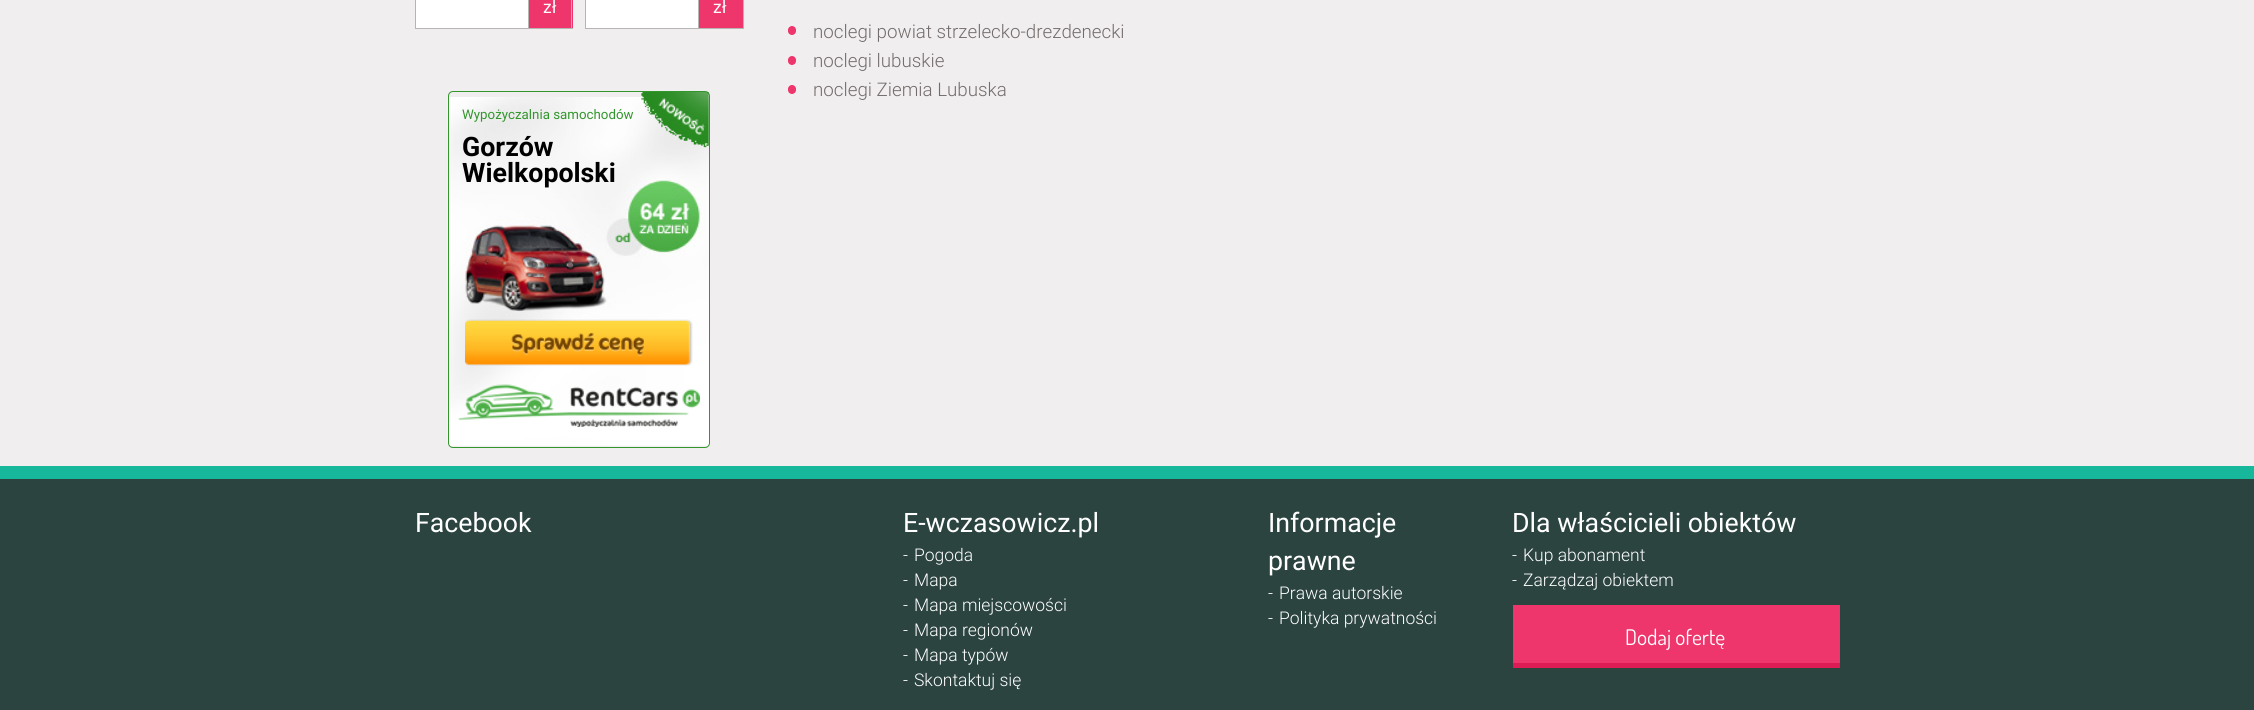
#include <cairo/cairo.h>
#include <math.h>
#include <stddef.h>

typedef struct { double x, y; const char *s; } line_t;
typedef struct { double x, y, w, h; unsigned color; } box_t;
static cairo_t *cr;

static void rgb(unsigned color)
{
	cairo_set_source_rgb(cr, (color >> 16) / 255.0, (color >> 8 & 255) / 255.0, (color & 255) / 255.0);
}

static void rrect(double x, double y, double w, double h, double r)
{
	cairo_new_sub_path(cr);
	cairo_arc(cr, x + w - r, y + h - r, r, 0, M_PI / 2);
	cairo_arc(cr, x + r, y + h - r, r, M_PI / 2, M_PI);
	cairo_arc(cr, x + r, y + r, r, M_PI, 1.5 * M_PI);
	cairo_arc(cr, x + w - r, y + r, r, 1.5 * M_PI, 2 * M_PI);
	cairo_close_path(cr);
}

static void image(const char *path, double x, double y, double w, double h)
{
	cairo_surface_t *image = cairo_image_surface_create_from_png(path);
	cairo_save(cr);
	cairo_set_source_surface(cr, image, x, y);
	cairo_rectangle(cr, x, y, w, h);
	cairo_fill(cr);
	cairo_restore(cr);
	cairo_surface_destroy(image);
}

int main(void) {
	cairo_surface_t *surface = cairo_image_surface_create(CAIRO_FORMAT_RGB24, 2254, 710);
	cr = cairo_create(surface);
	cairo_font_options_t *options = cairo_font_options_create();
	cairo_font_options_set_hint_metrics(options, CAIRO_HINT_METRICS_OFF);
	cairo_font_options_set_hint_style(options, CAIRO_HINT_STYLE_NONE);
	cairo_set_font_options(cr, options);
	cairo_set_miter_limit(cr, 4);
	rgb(0xf0eeef);
	cairo_paint(cr);
	rgb(0xffffff);
	cairo_rectangle(cr, 415.5, -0.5, 113, 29);
	cairo_fill_preserve(cr);
	rgb(0xb9b4b4);
	cairo_set_line_width(cr, 1);
	cairo_stroke(cr);
	{
		static const box_t items[] = {
			{529, 0, 44, 28, 0xef366c},
			{571, 0, 1, 29, 0xb9b4b4},
			{529, 28, 44, 1, 0xb9b4b4},
		};
		for (size_t i = 0; i < sizeof items / sizeof *items; i++) {
			rgb(items[i].color);
			cairo_rectangle(cr, items[i].x, items[i].y, items[i].w, items[i].h);
			cairo_fill(cr);
		}
	}
	rgb(0xffffff);
	cairo_rectangle(cr, 585.5, -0.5, 113, 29);
	cairo_fill_preserve(cr);
	rgb(0xb9b4b4);
	cairo_stroke(cr);
	{
		static const box_t items[] = {
			{699, 0, 44, 28, 0xef366c},
			{743, 0, 1, 29, 0xb9b4b4},
			{699, 28, 45, 1, 0xb9b4b4},
		};
		for (size_t i = 0; i < sizeof items / sizeof *items; i++) {
			rgb(items[i].color);
			cairo_rectangle(cr, items[i].x, items[i].y, items[i].w, items[i].h);
			cairo_fill(cr);
		}
	}
	image("img/1.png", 447, 97, 263, 349);
	rrect(448.5, 91.5, 261, 356, 4.5);
	rgb(0x33962d);
	cairo_stroke(cr);
	image("img/2.png", 641, 92, 68, 56);
	image("img/3.png", 465, 319, 228, 47);
	image("img/4.png", 458, 384, 242, 43);
	rgb(0xef366c);
	rrect(788, 26, 8, 9, 4);
	cairo_fill(cr);
	rrect(788, 56, 8, 9, 4);
	cairo_fill(cr);
	rrect(788, 85, 8, 9, 4);
	cairo_fill(cr);
	{
		static const box_t items[] = {
			{0, 479, 2254, 231, 0x2b4440},
			{0, 466, 2254, 13, 0x17b79b},
			{1513, 605, 327, 58, 0xef366c},
			{1513, 663, 327, 5, 0xdd1c55},
		};
		for (size_t i = 0; i < sizeof items / sizeof *items; i++) {
			rgb(items[i].color);
			cairo_rectangle(cr, items[i].x, items[i].y, items[i].w, items[i].h);
			cairo_fill(cr);
		}
	}
	cairo_select_font_face(cr, "Roboto", CAIRO_FONT_SLANT_NORMAL, CAIRO_FONT_WEIGHT_NORMAL);
	cairo_set_font_size(cr, 17.5);
	rgb(0xffffff);
	cairo_move_to(cr, 543, 13);
	cairo_show_text(cr, "zł");
	cairo_move_to(cr, 713, 13);
	cairo_show_text(cr, "zł");
	cairo_set_font_size(cr, 13.3);
	rgb(0x33962d);
	cairo_move_to(cr, 462, 119);
	cairo_show_text(cr, "Wypożyczalnia samochodów");
	cairo_select_font_face(cr, "Roboto", CAIRO_FONT_SLANT_NORMAL, CAIRO_FONT_WEIGHT_BOLD);
	cairo_set_font_size(cr, 26.75);
	rgb(0x000000);
	cairo_move_to(cr, 462, 156);
	cairo_show_text(cr, "Gorzów");
	cairo_move_to(cr, 462, 182);
	cairo_show_text(cr, "Wielkopolski");
	cairo_select_font_face(cr, "Roboto Light", CAIRO_FONT_SLANT_NORMAL, CAIRO_FONT_WEIGHT_NORMAL);
	cairo_set_font_size(cr, 18.75);
	rgb(0x736c6c);
	{
		static const line_t items[] = {
			{813, 38, "noclegi powiat strzelecko-drezdenecki"},
			{813, 67, "noclegi lubuskie"},
			{813, 96, "noclegi Ziemia Lubuska"},
		};
		for (size_t i = 0; i < sizeof items / sizeof *items; i++) {
			cairo_move_to(cr, items[i].x, items[i].y);
			cairo_show_text(cr, items[i].s);
		}
	}
	cairo_select_font_face(cr, "Roboto", CAIRO_FONT_SLANT_NORMAL, CAIRO_FONT_WEIGHT_NORMAL);
	cairo_set_font_size(cr, 26.75);
	rgb(0xffffff);
	cairo_move_to(cr, 415, 532);
	cairo_show_text(cr, "Facebook");
	cairo_move_to(cr, 903, 532);
	cairo_show_text(cr, "E-wczasowicz.pl");
	cairo_select_font_face(cr, "Roboto Light", CAIRO_FONT_SLANT_NORMAL, CAIRO_FONT_WEIGHT_NORMAL);
	cairo_set_font_size(cr, 17.5);
	{
		static const line_t items[] = {
			{903, 561, "-"},
			{914, 561, "Pogoda"},
			{903, 586, "-"},
			{914, 586, "Mapa"},
			{903, 611, "-"},
			{914, 611, "Mapa miejscowości"},
			{903, 636, "-"},
			{914, 636, "Mapa regionów"},
			{903, 661, "-"},
			{914, 661, "Mapa typów"},
			{903, 686, "-"},
			{914, 686, "Skontaktuj się"},
		};
		for (size_t i = 0; i < sizeof items / sizeof *items; i++) {
			cairo_move_to(cr, items[i].x, items[i].y);
			cairo_show_text(cr, items[i].s);
		}
	}
	cairo_select_font_face(cr, "Roboto", CAIRO_FONT_SLANT_NORMAL, CAIRO_FONT_WEIGHT_NORMAL);
	cairo_set_font_size(cr, 26.75);
	cairo_move_to(cr, 1268, 532);
	cairo_show_text(cr, "Informacje");
	cairo_move_to(cr, 1268, 570);
	cairo_show_text(cr, "prawne");
	cairo_select_font_face(cr, "Roboto Light", CAIRO_FONT_SLANT_NORMAL, CAIRO_FONT_WEIGHT_NORMAL);
	cairo_set_font_size(cr, 17.5);
	{
		static const line_t items[] = {
			{1268, 599, "-"},
			{1279, 599, "Prawa autorskie"},
			{1268, 624, "-"},
			{1279, 624, "Polityka prywatności"},
		};
		for (size_t i = 0; i < sizeof items / sizeof *items; i++) {
			cairo_move_to(cr, items[i].x, items[i].y);
			cairo_show_text(cr, items[i].s);
		}
	}
	cairo_select_font_face(cr, "Roboto", CAIRO_FONT_SLANT_NORMAL, CAIRO_FONT_WEIGHT_NORMAL);
	cairo_set_font_size(cr, 26.75);
	cairo_move_to(cr, 1512, 532);
	cairo_show_text(cr, "Dla właścicieli obiektów");
	cairo_select_font_face(cr, "Roboto Light", CAIRO_FONT_SLANT_NORMAL, CAIRO_FONT_WEIGHT_NORMAL);
	cairo_set_font_size(cr, 17.5);
	{
		static const line_t items[] = {
			{1512, 561, "-"},
			{1523, 561, "Kup abonament"},
			{1512, 586, "-"},
			{1523, 586, "Zarządzaj obiektem"},
		};
		for (size_t i = 0; i < sizeof items / sizeof *items; i++) {
			cairo_move_to(cr, items[i].x, items[i].y);
			cairo_show_text(cr, items[i].s);
		}
	}
	cairo_select_font_face(cr, "Dosis", CAIRO_FONT_SLANT_NORMAL, CAIRO_FONT_WEIGHT_NORMAL);
	cairo_set_font_size(cr, 21.5);
	cairo_move_to(cr, 1625, 645);
	cairo_show_text(cr, "Dodaj ofertę");
	cairo_surface_write_to_png(surface, "page.png");
	cairo_font_options_destroy(options);
	cairo_destroy(cr);
	cairo_surface_destroy(surface);
	return 0;
}
